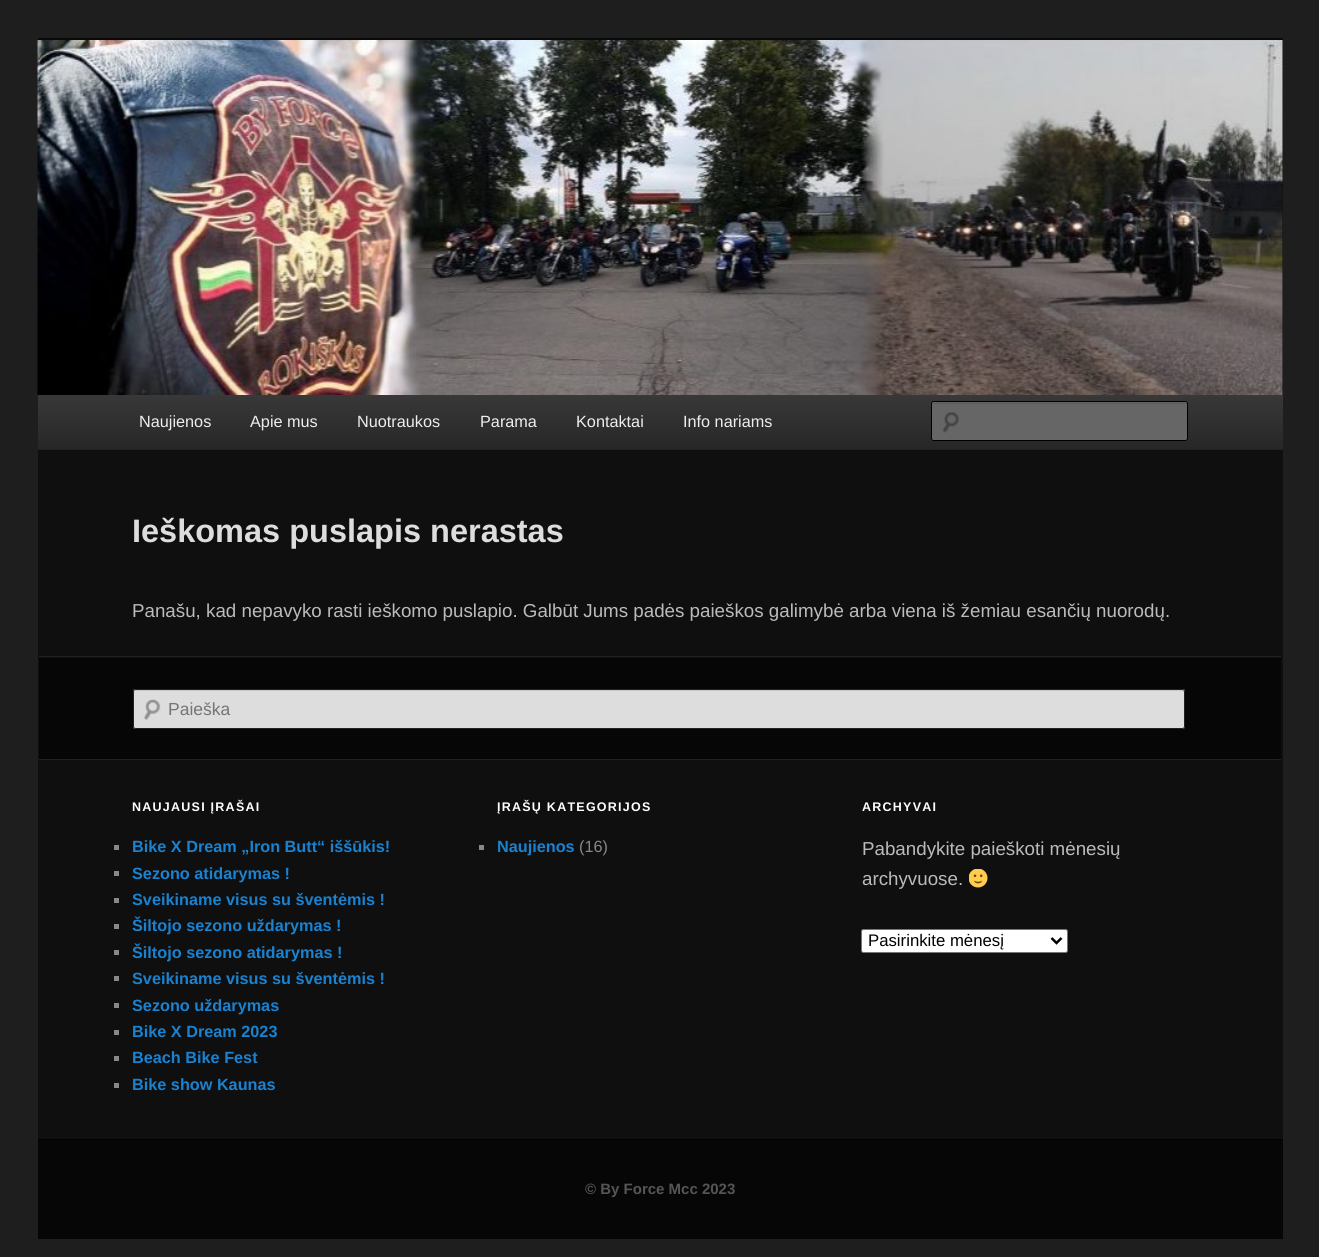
#include <cairo/cairo.h>
#include <math.h>
#include <stddef.h>

typedef struct { double x, y; const char *s; } line_t;
typedef struct { double x, y, w, h; unsigned color; } box_t;
static cairo_t *cr;

static void rgb(unsigned color)
{
	cairo_set_source_rgb(cr, (color >> 16) / 255.0, (color >> 8 & 255) / 255.0, (color & 255) / 255.0);
}

static void tracked(double x, double y, const char *s, double letter, double word)
{
	cairo_move_to(cr, x, y);
	while (*s) {
		char ch[5] = {0};
		int n = 0;
		do ch[n++] = *s++; while ((*s & 0xC0) == 0x80);
		cairo_show_text(cr, ch);
		cairo_rel_move_to(cr, letter + word * (*ch == ' '), 0);
	}
}

static void rrect(double x, double y, double w, double h, double r)
{
	cairo_new_sub_path(cr);
	cairo_arc(cr, x + w - r, y + h - r, r, 0, M_PI / 2);
	cairo_arc(cr, x + r, y + h - r, r, M_PI / 2, M_PI);
	cairo_arc(cr, x + r, y + r, r, M_PI, 1.5 * M_PI);
	cairo_arc(cr, x + w - r, y + r, r, 1.5 * M_PI, 2 * M_PI);
	cairo_close_path(cr);
}

static void image(const char *path, double x, double y, double w, double h)
{
	cairo_surface_t *image = cairo_image_surface_create_from_png(path);
	cairo_save(cr);
	cairo_set_source_surface(cr, image, x, y);
	cairo_rectangle(cr, x, y, w, h);
	cairo_fill(cr);
	cairo_restore(cr);
	cairo_surface_destroy(image);
}

int main(void) {
	cairo_surface_t *surface = cairo_image_surface_create(CAIRO_FORMAT_RGB24, 1319, 1257);
	cr = cairo_create(surface);
	cairo_font_options_t *options = cairo_font_options_create();
	cairo_font_options_set_hint_metrics(options, CAIRO_HINT_METRICS_OFF);
	cairo_font_options_set_hint_style(options, CAIRO_HINT_STYLE_NONE);
	cairo_set_font_options(cr, options);
	cairo_set_miter_limit(cr, 4);
	cairo_pattern_t *gradient;
	rgb(0x1e1e1e);
	cairo_paint(cr);
	rgb(0x0f0f0f);
	cairo_rectangle(cr, 38, 41, 1245, 1098);
	cairo_fill(cr);
	rgb(0x0a0a0a);
	cairo_rectangle(cr, 38, 38, 1245, 3);
	cairo_fill(cr);
	image("img/1.png", 37, 40, 1246, 355);
	gradient = cairo_pattern_create_linear(660, 395, 660, 449);
	cairo_pattern_add_color_stop_rgba(gradient, 0, 0.22, 0.22, 0.22, 1);
	cairo_pattern_add_color_stop_rgba(gradient, 1, 0.153, 0.153, 0.153, 1);
	cairo_set_source(cr, gradient);
	cairo_pattern_destroy(gradient);
	cairo_rectangle(cr, 38, 395, 1245, 54);
	cairo_fill(cr);
	rgb(0x222222);
	cairo_rectangle(cr, 38, 449, 1245, 1);
	cairo_fill(cr);
	rgb(0x666666);
	rrect(931, 401, 257, 40, 2.5);
	cairo_fill(cr);
	image("img/2.png", 942, 412, 17, 21);
	rgb(0x5c5c5c);
	cairo_new_path(cr);
	cairo_move_to(cr, 934, 404);
	cairo_line_to(cr, 1185, 404);
	cairo_curve_to(cr, 1186, 404, 1186, 404, 1186, 405);
	cairo_line_to(cr, 1186, 403);
	cairo_line_to(cr, 934, 403);
	cairo_line_to(cr, 933, 404);
	cairo_close_path(cr);
	cairo_fill(cr);
	rrect(931.5, 401.5, 256, 39, 2);
	rgb(0x000000);
	cairo_set_line_width(cr, 1);
	cairo_stroke(cr);
	{
		static const box_t items[] = {
			{39, 658, 1242, 101, 0x060606},
			{39, 656, 1242, 1, 0x222222},
			{39, 759, 1242, 1, 0x222222},
		};
		for (size_t i = 0; i < sizeof items / sizeof *items; i++) {
			rgb(items[i].color);
			cairo_rectangle(cr, items[i].x, items[i].y, items[i].w, items[i].h);
			cairo_fill(cr);
		}
	}
	rgb(0xdddddd);
	rrect(133, 689, 1052, 40, 2.5);
	cairo_fill(cr);
	image("img/3.png", 143, 699, 18, 21);
	rgb(0xc7c7c7);
	cairo_new_path(cr);
	cairo_move_to(cr, 135, 691);
	cairo_line_to(cr, 1182, 691);
	cairo_line_to(cr, 1184, 692);
	cairo_line_to(cr, 1184, 691);
	cairo_line_to(cr, 1183, 690);
	cairo_line_to(cr, 135, 690);
	cairo_line_to(cr, 134, 690);
	cairo_line_to(cr, 134, 692);
	cairo_close_path(cr);
	cairo_fill(cr);
	rrect(133.5, 689.5, 1051, 39, 2);
	rgb(0x222222);
	cairo_stroke(cr);
	{
		static const box_t items[] = {
			{114, 845, 5, 5, 0x888888},
			{114, 871, 5, 5, 0x888888},
			{114, 898, 5, 5, 0x888888},
			{114, 924, 5, 5, 0x888888},
			{114, 950, 5, 5, 0x888888},
			{114, 976, 5, 5, 0x888888},
			{114, 1003, 5, 5, 0x888888},
			{114, 1030, 5, 5, 0x888888},
			{114, 1056, 5, 5, 0x888888},
			{114, 1083, 5, 5, 0x888888},
			{479, 845, 5, 5, 0x888888},
		};
		for (size_t i = 0; i < sizeof items / sizeof *items; i++) {
			rgb(items[i].color);
			cairo_rectangle(cr, items[i].x, items[i].y, items[i].w, items[i].h);
			cairo_fill(cr);
		}
	}
	image("img/4.png", 969, 869, 19, 19);
	rgb(0xffffff);
	rrect(861.5, 929.5, 206, 23, 2);
	cairo_fill_preserve(cr);
	rgb(0x767676);
	cairo_stroke(cr);
	cairo_new_path(cr);
	cairo_move_to(cr, 1051.5, 938);
	cairo_line_to(cr, 1056.5, 943);
	cairo_line_to(cr, 1061.5, 938);
	rgb(0x000000);
	cairo_set_line_width(cr, 2.5);
	cairo_stroke(cr);
	rgb(0x060606);
	cairo_rectangle(cr, 38, 1140, 1245, 99);
	cairo_fill(cr);
	rgb(0x000000);
	cairo_rectangle(cr, 38, 1139, 1245, 1);
	cairo_fill(cr);
	cairo_select_font_face(cr, "Liberation Sans", CAIRO_FONT_SLANT_NORMAL, CAIRO_FONT_WEIGHT_NORMAL);
	cairo_set_font_size(cr, 16.25);
	rgb(0xeeeeee);
	{
		static const line_t items[] = {
			{139, 427, "Naujienos"},
			{250, 427, "Apie mus"},
			{357, 427, "Nuotraukos"},
			{480, 427, "Parama"},
			{576, 427, "Kontaktai"},
			{683, 427, "Info nariams"},
		};
		for (size_t i = 0; i < sizeof items / sizeof *items; i++) {
			cairo_move_to(cr, items[i].x, items[i].y);
			cairo_show_text(cr, items[i].s);
		}
	}
	cairo_select_font_face(cr, "Liberation Sans", CAIRO_FONT_SLANT_NORMAL, CAIRO_FONT_WEIGHT_BOLD);
	cairo_set_font_size(cr, 32.5);
	rgb(0xdddddd);
	cairo_move_to(cr, 132, 542);
	cairo_show_text(cr, "Ieškomas puslapis nerastas");
	cairo_select_font_face(cr, "Liberation Sans", CAIRO_FONT_SLANT_NORMAL, CAIRO_FONT_WEIGHT_NORMAL);
	cairo_set_font_size(cr, 18.75);
	rgb(0xbbbbbb);
	cairo_move_to(cr, 132, 617);
	cairo_show_text(cr, "Panašu, kad nepavyko rasti ieškomo puslapio. Galbūt Jums padės paieškos galimybė arba viena iš žemiau esančių nuorodų.");
	cairo_set_font_size(cr, 17.5);
	rgb(0x757575);
	cairo_move_to(cr, 168, 715);
	cairo_show_text(cr, "Paieška");
	cairo_select_font_face(cr, "Liberation Sans", CAIRO_FONT_SLANT_NORMAL, CAIRO_FONT_WEIGHT_BOLD);
	cairo_set_font_size(cr, 12.5);
	rgb(0xffffff);
	tracked(132, 811, "NAUJAUSI ĮRAŠAI", 1.25, 0);
	cairo_set_font_size(cr, 16.25);
	rgb(0x1982d1);
	{
		static const line_t items[] = {
			{132, 852, "Bike X Dream „Iron Butt“ iššūkis!"},
			{132, 879, "Sezono atidarymas !"},
			{132, 905, "Sveikiname visus su šventėmis !"},
			{132, 931, "Šiltojo sezono uždarymas !"},
			{132, 958, "Šiltojo sezono atidarymas !"},
			{132, 984, "Sveikiname visus su šventėmis !"},
			{132, 1011, "Sezono uždarymas"},
			{132, 1037, "Bike X Dream 2023"},
			{132, 1063, "Beach Bike Fest"},
			{132, 1090, "Bike show Kaunas"},
		};
		for (size_t i = 0; i < sizeof items / sizeof *items; i++) {
			cairo_move_to(cr, items[i].x, items[i].y);
			cairo_show_text(cr, items[i].s);
		}
	}
	cairo_set_font_size(cr, 12.5);
	rgb(0xffffff);
	tracked(497, 811, "ĮRAŠŲ KATEGORIJOS", 1.25, 0);
	cairo_set_font_size(cr, 16.25);
	rgb(0x1982d1);
	cairo_move_to(cr, 497, 852);
	cairo_show_text(cr, "Naujienos");
	cairo_select_font_face(cr, "Liberation Sans", CAIRO_FONT_SLANT_NORMAL, CAIRO_FONT_WEIGHT_NORMAL);
	rgb(0x888888);
	cairo_move_to(cr, 579, 852);
	cairo_show_text(cr, "(16)");
	cairo_select_font_face(cr, "Liberation Sans", CAIRO_FONT_SLANT_NORMAL, CAIRO_FONT_WEIGHT_BOLD);
	cairo_set_font_size(cr, 12.5);
	rgb(0xffffff);
	tracked(862, 811, "ARCHYVAI", 1.25, 0);
	cairo_select_font_face(cr, "Liberation Sans", CAIRO_FONT_SLANT_NORMAL, CAIRO_FONT_WEIGHT_NORMAL);
	cairo_set_font_size(cr, 18.75);
	rgb(0xbbbbbb);
	cairo_move_to(cr, 862, 855);
	cairo_show_text(cr, "Pabandykite paieškoti mėnesių");
	cairo_move_to(cr, 862, 885);
	cairo_show_text(cr, "archyvuose.");
	cairo_set_font_size(cr, 16.75);
	rgb(0x000000);
	cairo_move_to(cr, 868, 946);
	cairo_show_text(cr, "Pasirinkite mėnesį");
	cairo_select_font_face(cr, "Liberation Sans", CAIRO_FONT_SLANT_NORMAL, CAIRO_FONT_WEIGHT_BOLD);
	cairo_set_font_size(cr, 15);
	rgb(0x555555);
	cairo_move_to(cr, 585, 1194);
	cairo_show_text(cr, "© By Force Mcc 2023");
	cairo_surface_write_to_png(surface, "page.png");
	cairo_font_options_destroy(options);
	cairo_destroy(cr);
	cairo_surface_destroy(surface);
	return 0;
}
